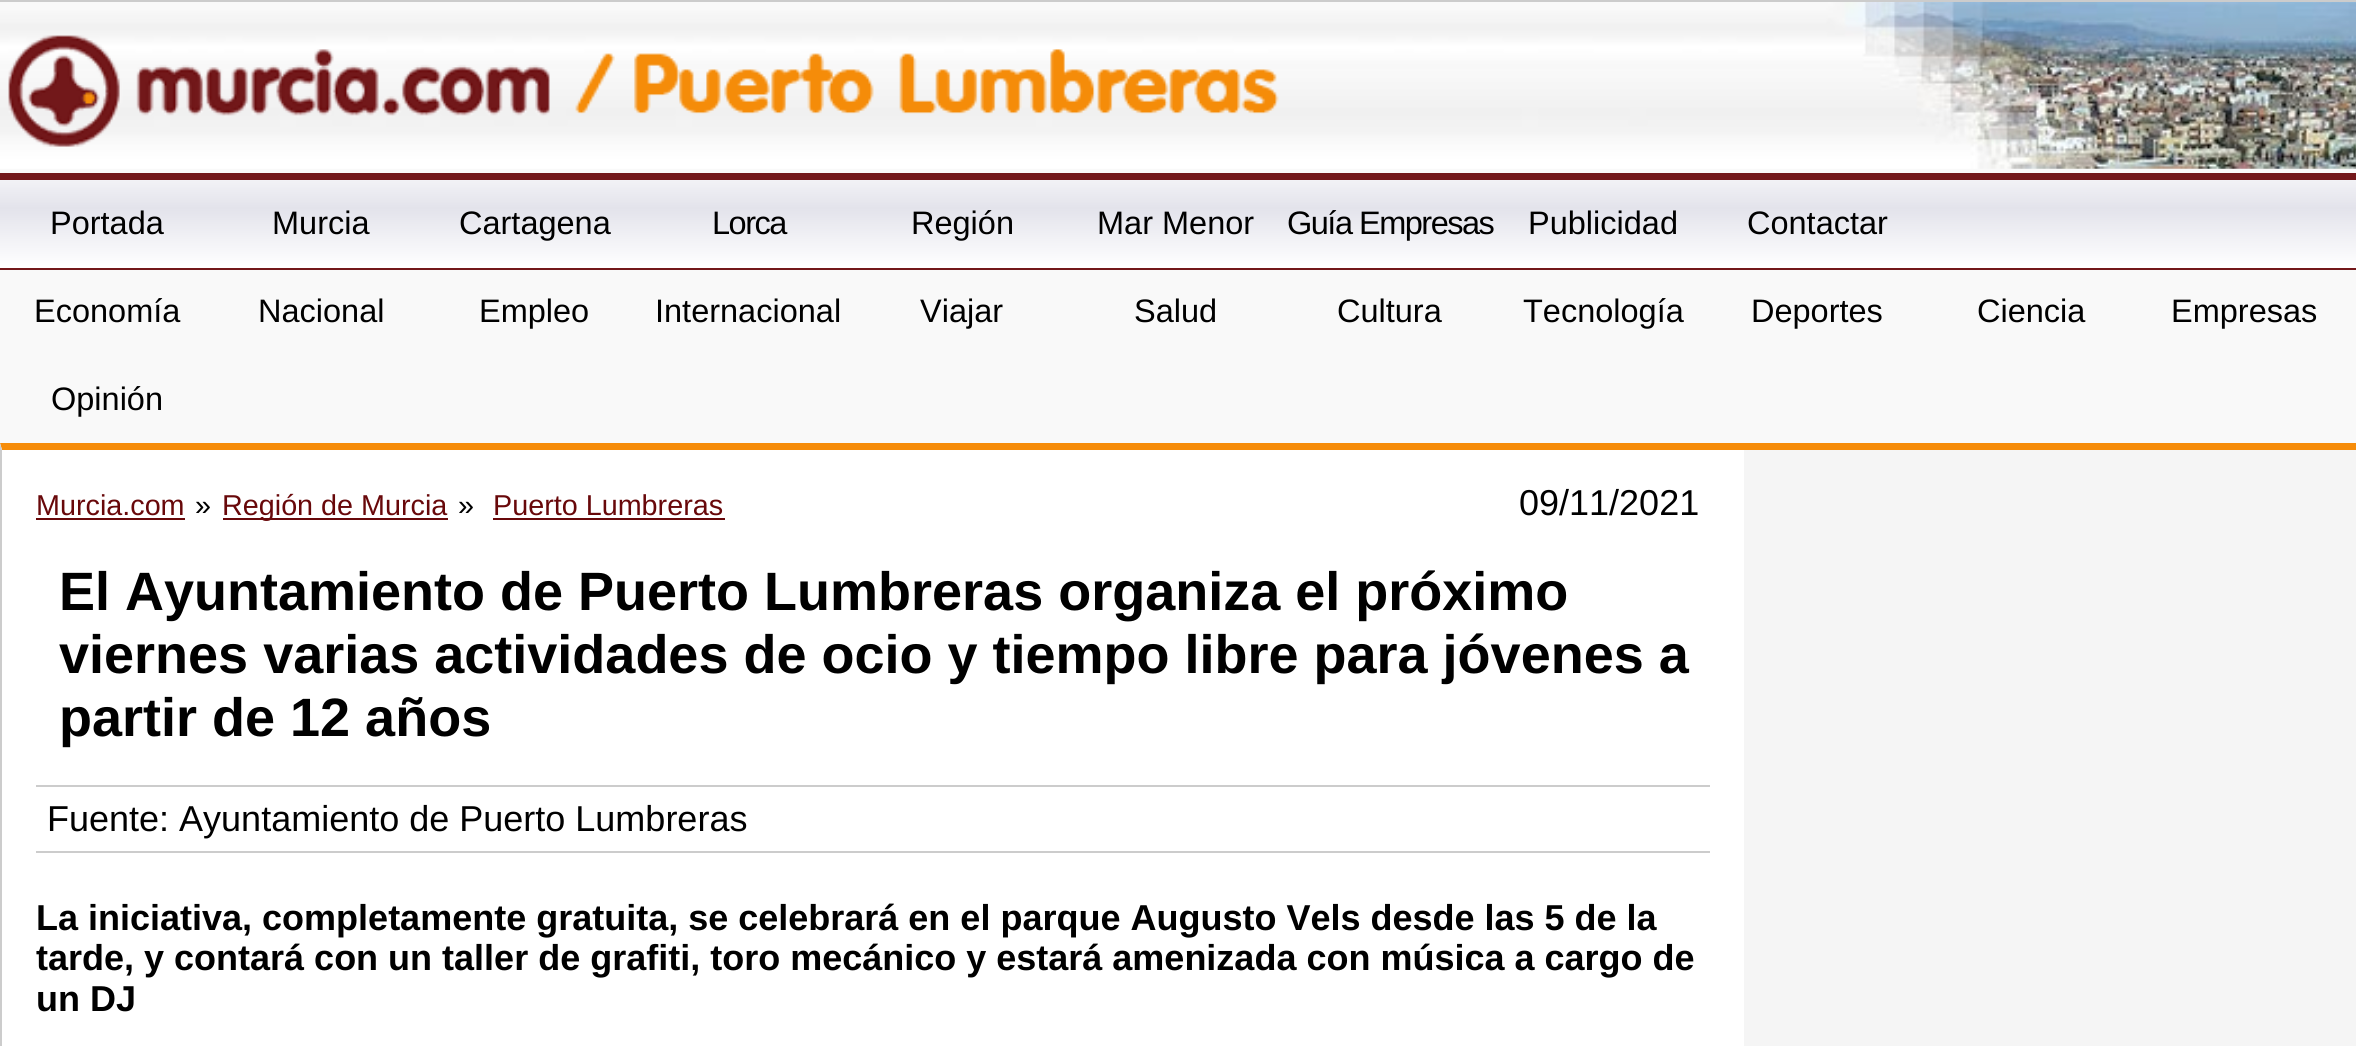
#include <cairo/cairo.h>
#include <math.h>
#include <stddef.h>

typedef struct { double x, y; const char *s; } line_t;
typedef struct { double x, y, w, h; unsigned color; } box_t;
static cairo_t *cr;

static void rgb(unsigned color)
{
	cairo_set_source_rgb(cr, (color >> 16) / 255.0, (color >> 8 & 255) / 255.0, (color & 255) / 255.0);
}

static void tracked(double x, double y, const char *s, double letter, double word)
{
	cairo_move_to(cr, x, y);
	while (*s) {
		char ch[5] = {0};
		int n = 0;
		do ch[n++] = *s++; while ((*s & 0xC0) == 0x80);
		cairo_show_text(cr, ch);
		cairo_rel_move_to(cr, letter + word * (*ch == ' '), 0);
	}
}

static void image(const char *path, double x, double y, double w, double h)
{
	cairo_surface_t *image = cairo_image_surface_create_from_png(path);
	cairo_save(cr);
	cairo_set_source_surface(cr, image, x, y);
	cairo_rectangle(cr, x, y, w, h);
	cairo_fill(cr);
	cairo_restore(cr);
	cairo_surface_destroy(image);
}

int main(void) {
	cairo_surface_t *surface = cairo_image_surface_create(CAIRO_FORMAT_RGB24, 2356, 1046);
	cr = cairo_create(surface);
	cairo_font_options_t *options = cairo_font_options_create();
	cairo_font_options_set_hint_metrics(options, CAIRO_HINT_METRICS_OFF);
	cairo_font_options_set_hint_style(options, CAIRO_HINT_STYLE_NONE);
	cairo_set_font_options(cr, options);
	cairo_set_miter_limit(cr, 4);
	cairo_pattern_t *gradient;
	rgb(0xf9f9f9);
	cairo_paint(cr);
	image("img/1.png", 0, 2, 2356, 167);
	image("img/2.png", 8, 35, 1271, 112);
	{
		static const box_t items[] = {
			{0, 0, 2356, 2, 0xcccccc},
			{0, 173, 2356, 7, 0x72171a},
			{0, 268, 2356, 2, 0x72171a},
		};
		for (size_t i = 0; i < sizeof items / sizeof *items; i++) {
			rgb(items[i].color);
			cairo_rectangle(cr, items[i].x, items[i].y, items[i].w, items[i].h);
			cairo_fill(cr);
		}
	}
	gradient = cairo_pattern_create_linear(1179, 180, 1179, 268);
	cairo_pattern_add_color_stop_rgba(gradient, 0, 0.949, 0.949, 0.965, 1);
	cairo_pattern_add_color_stop_rgba(gradient, 0.32, 0.89, 0.89, 0.922, 1);
	cairo_pattern_add_color_stop_rgba(gradient, 1, 1, 1, 1, 1);
	cairo_set_source(cr, gradient);
	cairo_pattern_destroy(gradient);
	cairo_rectangle(cr, 0, 180, 2356, 88);
	cairo_fill(cr);
	rgb(0xffffff);
	cairo_rectangle(cr, 0, 443, 1744, 603);
	cairo_fill(cr);
	rgb(0xf68c09);
	cairo_new_path(cr);
	cairo_move_to(cr, 0, 443);
	cairo_line_to(cr, 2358, 443);
	cairo_line_to(cr, 2356, 450);
	cairo_line_to(cr, 2, 450);
	cairo_close_path(cr);
	cairo_fill(cr);
	rgb(0xcccccc);
	cairo_new_path(cr);
	cairo_move_to(cr, 0, 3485);
	cairo_line_to(cr, 0, 443);
	cairo_line_to(cr, 2, 450);
	cairo_line_to(cr, 2, 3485);
	cairo_close_path(cr);
	cairo_fill(cr);
	{
		static const box_t items[] = {
			{36, 518, 149, 2, 0x68080a},
			{223, 518, 225, 2, 0x68080a},
			{493, 518, 232, 2, 0x68080a},
			{36, 785, 1674, 2, 0xcccccc},
			{36, 851, 1674, 2, 0xcccccc},
			{1744, 450, 612, 596, 0xf5f5f5},
		};
		for (size_t i = 0; i < sizeof items / sizeof *items; i++) {
			rgb(items[i].color);
			cairo_rectangle(cr, items[i].x, items[i].y, items[i].w, items[i].h);
			cairo_fill(cr);
		}
	}
	cairo_select_font_face(cr, "Liberation Sans", CAIRO_FONT_SLANT_NORMAL, CAIRO_FONT_WEIGHT_NORMAL);
	cairo_set_font_size(cr, 32.5);
	rgb(0x000000);
	{
		static const line_t items[] = {
			{50, 234, "Portada"},
			{272, 234, "Murcia"},
			{459, 234, "Cartagena"},
		};
		for (size_t i = 0; i < sizeof items / sizeof *items; i++) {
			cairo_move_to(cr, items[i].x, items[i].y);
			cairo_show_text(cr, items[i].s);
		}
	}
	tracked(712, 234, "Lorca", -1.5, 0);
	cairo_move_to(cr, 911, 234);
	cairo_show_text(cr, "Región");
	cairo_move_to(cr, 1097, 234);
	cairo_show_text(cr, "Mar Menor");
	tracked(1287, 234, "Guía Empresas", -1.5, 0);
	{
		static const line_t items[] = {
			{1528, 234, "Publicidad"},
			{1747, 234, "Contactar"},
			{34, 322, "Economía"},
			{258, 322, "Nacional"},
			{479, 322, "Empleo"},
			{655, 322, "Internacional"},
			{920, 322, "Viajar"},
			{1134, 322, "Salud"},
			{1337, 322, "Cultura"},
			{1523, 322, "Tecnología"},
			{1751, 322, "Deportes"},
			{1977, 322, "Ciencia"},
			{2171, 322, "Empresas"},
			{51, 410, "Opinión"},
		};
		for (size_t i = 0; i < sizeof items / sizeof *items; i++) {
			cairo_move_to(cr, items[i].x, items[i].y);
			cairo_show_text(cr, items[i].s);
		}
	}
	cairo_set_font_size(cr, 28.75);
	rgb(0x68080a);
	cairo_move_to(cr, 36, 515);
	cairo_show_text(cr, "Murcia.com");
	rgb(0x000000);
	cairo_move_to(cr, 195, 515);
	cairo_show_text(cr, "»");
	rgb(0x68080a);
	cairo_move_to(cr, 222, 515);
	cairo_show_text(cr, "Región de Murcia");
	rgb(0x000000);
	cairo_move_to(cr, 458, 515);
	cairo_show_text(cr, "»");
	rgb(0x68080a);
	cairo_move_to(cr, 493, 515);
	cairo_show_text(cr, "Puerto Lumbreras");
	cairo_set_font_size(cr, 36);
	rgb(0x000000);
	cairo_move_to(cr, 1519, 515);
	cairo_show_text(cr, "09/11/2021");
	cairo_select_font_face(cr, "Liberation Sans", CAIRO_FONT_SLANT_NORMAL, CAIRO_FONT_WEIGHT_BOLD);
	cairo_set_font_size(cr, 54);
	{
		static const line_t items[] = {
			{59, 610, "El Ayuntamiento de Puerto Lumbreras organiza el próximo"},
			{59, 673, "viernes varias actividades de ocio y tiempo libre para jóvenes a"},
			{59, 736, "partir de 12 años"},
		};
		for (size_t i = 0; i < sizeof items / sizeof *items; i++) {
			cairo_move_to(cr, items[i].x, items[i].y);
			cairo_show_text(cr, items[i].s);
		}
	}
	cairo_select_font_face(cr, "Liberation Sans", CAIRO_FONT_SLANT_NORMAL, CAIRO_FONT_WEIGHT_NORMAL);
	cairo_set_font_size(cr, 36);
	cairo_move_to(cr, 47, 831);
	cairo_show_text(cr, "Fuente: Ayuntamiento de Puerto Lumbreras");
	cairo_select_font_face(cr, "Liberation Sans", CAIRO_FONT_SLANT_NORMAL, CAIRO_FONT_WEIGHT_BOLD);
	{
		static const line_t items[] = {
			{36, 930, "La iniciativa, completamente gratuita, se celebrará en el parque Augusto Vels desde las 5 de la"},
			{36, 970, "tarde, y contará con un taller de grafiti, toro mecánico y estará amenizada con música a cargo de"},
			{36, 1011, "un DJ"},
		};
		for (size_t i = 0; i < sizeof items / sizeof *items; i++) {
			cairo_move_to(cr, items[i].x, items[i].y);
			cairo_show_text(cr, items[i].s);
		}
	}
	cairo_surface_write_to_png(surface, "page.png");
	cairo_font_options_destroy(options);
	cairo_destroy(cr);
	cairo_surface_destroy(surface);
	return 0;
}
